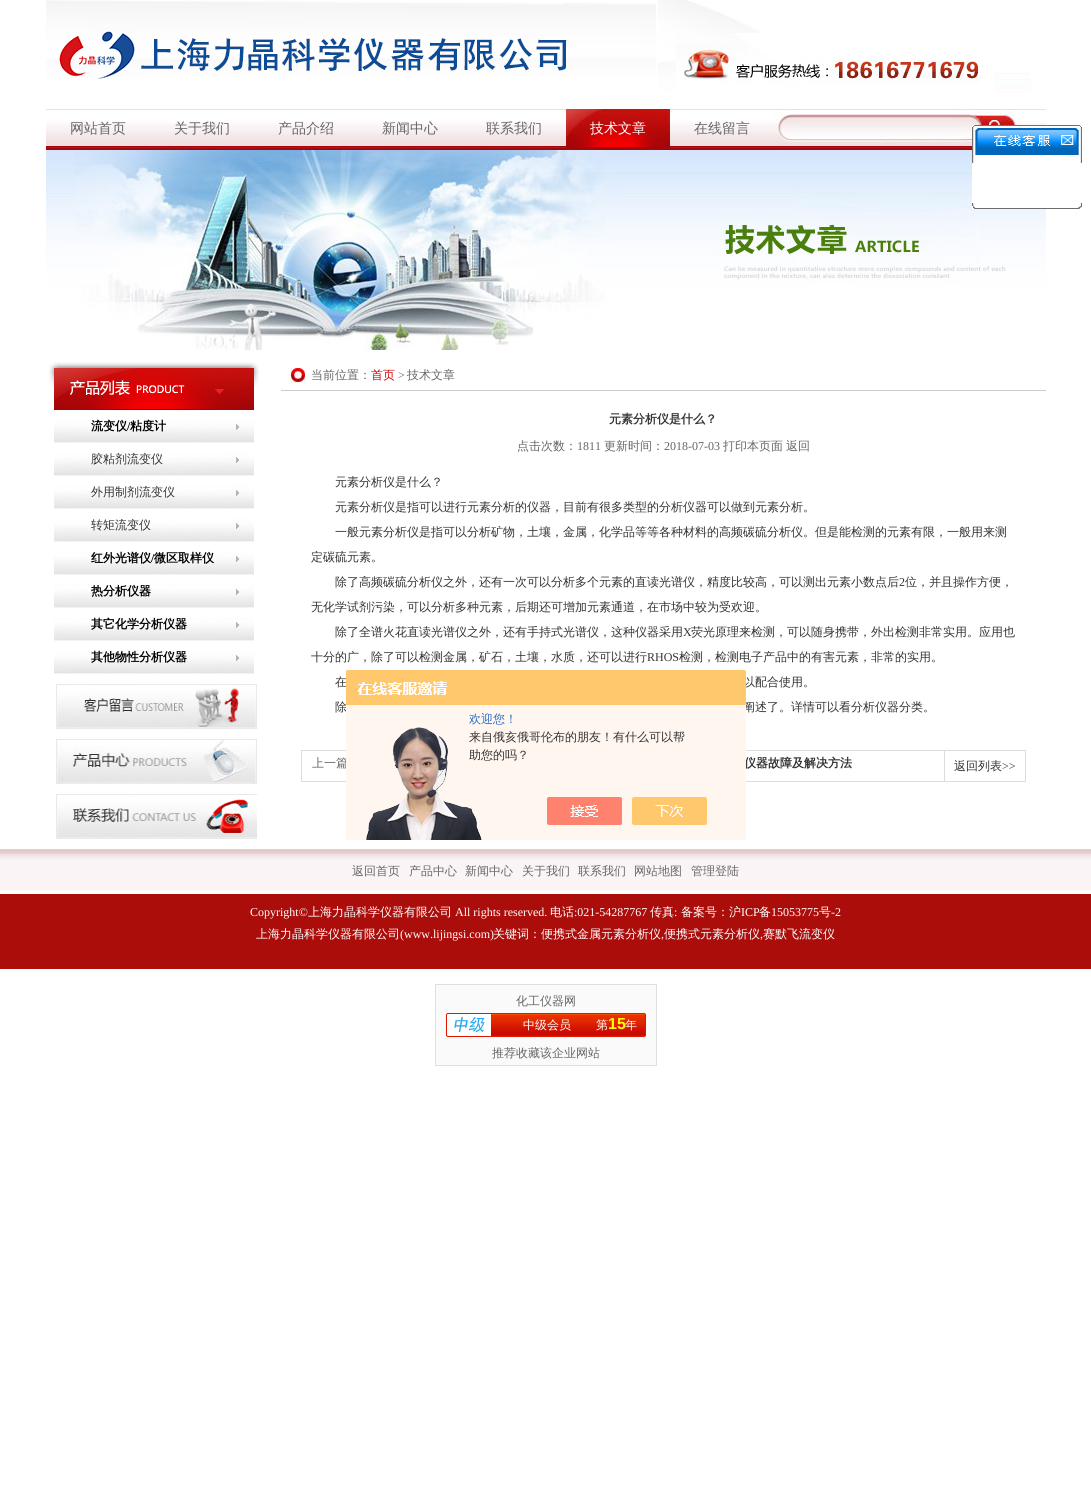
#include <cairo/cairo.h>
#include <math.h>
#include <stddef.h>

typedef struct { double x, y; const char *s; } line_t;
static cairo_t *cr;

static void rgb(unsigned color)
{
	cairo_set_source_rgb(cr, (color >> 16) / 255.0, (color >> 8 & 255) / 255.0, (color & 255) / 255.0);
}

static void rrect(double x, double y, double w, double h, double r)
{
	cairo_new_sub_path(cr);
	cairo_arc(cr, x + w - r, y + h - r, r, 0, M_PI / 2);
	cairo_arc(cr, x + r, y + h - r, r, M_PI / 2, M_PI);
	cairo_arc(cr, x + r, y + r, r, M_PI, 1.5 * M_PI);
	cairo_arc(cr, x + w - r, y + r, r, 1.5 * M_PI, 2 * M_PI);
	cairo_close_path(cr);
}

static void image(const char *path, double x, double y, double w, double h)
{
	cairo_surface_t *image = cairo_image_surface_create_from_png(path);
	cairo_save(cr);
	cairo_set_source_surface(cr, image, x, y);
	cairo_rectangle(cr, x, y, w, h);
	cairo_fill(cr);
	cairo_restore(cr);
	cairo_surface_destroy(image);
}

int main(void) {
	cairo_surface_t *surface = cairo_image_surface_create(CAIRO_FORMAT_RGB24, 1091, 1509);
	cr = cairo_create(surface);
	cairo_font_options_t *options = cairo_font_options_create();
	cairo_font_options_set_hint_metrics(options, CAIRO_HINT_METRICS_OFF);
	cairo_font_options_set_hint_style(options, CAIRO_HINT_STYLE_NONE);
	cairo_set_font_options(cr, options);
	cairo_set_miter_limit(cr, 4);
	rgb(0xffffff);
	cairo_paint(cr);
	image("img/1.png", 46, 0, 610, 79);
	image("img/2.png", 658, 0, 373, 93);
	image("img/3.png", 46, 109, 1000, 41);
	image("img/4.png", 566, 109, 104, 39);
	image("img/5.png", 774, 109, 242, 37);
	image("img/8.png", 46, 150, 1000, 200);
	image("img/6.png", 972, 125, 110, 38);
	rgb(0xffffff);
	cairo_rectangle(cr, 972, 163, 74, 40);
	cairo_fill(cr);
	image("img/7.png", 972, 203, 110, 6);
	image("img/9.png", 49, 362, 210, 48);
	image("img/10.png", 54, 419, 200, 24);
	image("img/10.png", 54, 452, 200, 24);
	image("img/10.png", 54, 485, 200, 24);
	image("img/10.png", 54, 518, 200, 24);
	image("img/10.png", 54, 551, 200, 24);
	image("img/10.png", 54, 584, 200, 24);
	image("img/10.png", 54, 617, 200, 24);
	image("img/10.png", 54, 650, 200, 24);
	image("img/11.png", 56, 684, 201, 45);
	image("img/12.png", 56, 739, 201, 45);
	image("img/13.png", 56, 794, 201, 45);
	image("img/14.png", 291, 368, 14, 15);
	rgb(0xcccccc);
	cairo_rectangle(cr, 281, 390, 765, 1);
	cairo_fill(cr);
	cairo_rectangle(cr, 301.5, 750.5, 724, 31);
	rgb(0xdddddd);
	cairo_set_line_width(cr, 1);
	cairo_stroke(cr);
	cairo_rectangle(cr, 944, 751, 1, 30);
	cairo_fill(cr);
	image("img/16.png", 0, 849, 1091, 120);
	rgb(0xfafafa);
	cairo_rectangle(cr, 435.5, 984.5, 221, 81);
	cairo_fill_preserve(cr);
	rgb(0xdfdfdf);
	cairo_stroke(cr);
	image("img/17.png", 446, 1014, 200, 22);
	rrect(446.5, 1013.5, 199, 23, 1.5);
	rgb(0xdf1700);
	cairo_stroke(cr);
	rgb(0xffffff);
	cairo_new_path(cr);
	cairo_move_to(cr, 448, 1014);
	cairo_line_to(cr, 491, 1014);
	cairo_line_to(cr, 491, 1036);
	cairo_line_to(cr, 448, 1036);
	cairo_curve_to(cr, 447.5, 1036, 447, 1035.5, 447, 1035);
	cairo_line_to(cr, 447, 1015);
	cairo_curve_to(cr, 447, 1014.5, 447.5, 1014, 448, 1014);
	cairo_close_path(cr);
	cairo_fill(cr);
	image("img/18.png", 454, 1017, 31, 16);
	cairo_select_font_face(cr, "WenQuanYi Zen Hei Medium", CAIRO_FONT_SLANT_NORMAL, CAIRO_FONT_WEIGHT_NORMAL);
	cairo_set_font_size(cr, 14);
	rgb(0x666666);
	{
		static const line_t items[] = {
			{70, 133, "网站首页"},
			{174, 133, "关于我们"},
			{278, 133, "产品介绍"},
			{382, 133, "新闻中心"},
			{486, 133, "联系我们"},
		};
		for (size_t i = 0; i < sizeof items / sizeof *items; i++) {
			cairo_move_to(cr, items[i].x, items[i].y);
			cairo_show_text(cr, items[i].s);
		}
	}
	rgb(0xffffff);
	cairo_move_to(cr, 590, 133);
	cairo_show_text(cr, "技术文章");
	rgb(0x666666);
	cairo_move_to(cr, 694, 133);
	cairo_show_text(cr, "在线留言");
	cairo_select_font_face(cr, "WenQuanYi Zen Hei", CAIRO_FONT_SLANT_NORMAL, CAIRO_FONT_WEIGHT_BOLD);
	cairo_set_font_size(cr, 12);
	rgb(0x000000);
	cairo_move_to(cr, 91, 430);
	cairo_show_text(cr, "流变仪");
	cairo_select_font_face(cr, "Liberation Serif", CAIRO_FONT_SLANT_NORMAL, CAIRO_FONT_WEIGHT_BOLD);
	cairo_move_to(cr, 127, 430);
	cairo_show_text(cr, "/");
	cairo_select_font_face(cr, "WenQuanYi Zen Hei", CAIRO_FONT_SLANT_NORMAL, CAIRO_FONT_WEIGHT_BOLD);
	cairo_move_to(cr, 130, 430);
	cairo_show_text(cr, "粘度计");
	cairo_select_font_face(cr, "WenQuanYi Zen Hei Medium", CAIRO_FONT_SLANT_NORMAL, CAIRO_FONT_WEIGHT_NORMAL);
	rgb(0x333333);
	{
		static const line_t items[] = {
			{91, 463, "胶粘剂流变仪"},
			{91, 496, "外用制剂流变仪"},
			{91, 529, "转矩流变仪"},
		};
		for (size_t i = 0; i < sizeof items / sizeof *items; i++) {
			cairo_move_to(cr, items[i].x, items[i].y);
			cairo_show_text(cr, items[i].s);
		}
	}
	cairo_select_font_face(cr, "WenQuanYi Zen Hei", CAIRO_FONT_SLANT_NORMAL, CAIRO_FONT_WEIGHT_BOLD);
	rgb(0x000000);
	cairo_move_to(cr, 91, 562);
	cairo_show_text(cr, "红外光谱仪");
	cairo_select_font_face(cr, "Liberation Serif", CAIRO_FONT_SLANT_NORMAL, CAIRO_FONT_WEIGHT_BOLD);
	cairo_move_to(cr, 151, 562);
	cairo_show_text(cr, "/");
	cairo_select_font_face(cr, "WenQuanYi Zen Hei", CAIRO_FONT_SLANT_NORMAL, CAIRO_FONT_WEIGHT_BOLD);
	{
		static const line_t items[] = {
			{154, 562, "微区取样仪"},
			{91, 595, "热分析仪器"},
			{91, 628, "其它化学分析仪器"},
			{91, 661, "其他物性分析仪器"},
		};
		for (size_t i = 0; i < sizeof items / sizeof *items; i++) {
			cairo_move_to(cr, items[i].x, items[i].y);
			cairo_show_text(cr, items[i].s);
		}
	}
	cairo_select_font_face(cr, "WenQuanYi Zen Hei Medium", CAIRO_FONT_SLANT_NORMAL, CAIRO_FONT_WEIGHT_NORMAL);
	rgb(0x666666);
	cairo_move_to(cr, 311, 379);
	cairo_show_text(cr, "当前位置：");
	rgb(0xd20204);
	cairo_move_to(cr, 371, 379);
	cairo_show_text(cr, "首页");
	cairo_select_font_face(cr, "Liberation Serif", CAIRO_FONT_SLANT_NORMAL, CAIRO_FONT_WEIGHT_NORMAL);
	rgb(0x666666);
	cairo_move_to(cr, 398, 379);
	cairo_show_text(cr, ">");
	cairo_select_font_face(cr, "WenQuanYi Zen Hei Medium", CAIRO_FONT_SLANT_NORMAL, CAIRO_FONT_WEIGHT_NORMAL);
	cairo_move_to(cr, 407, 379);
	cairo_show_text(cr, "技术文章");
	cairo_select_font_face(cr, "WenQuanYi Zen Hei", CAIRO_FONT_SLANT_NORMAL, CAIRO_FONT_WEIGHT_BOLD);
	rgb(0x333333);
	cairo_move_to(cr, 609, 423);
	cairo_show_text(cr, "元素分析仪是什么？");
	cairo_select_font_face(cr, "WenQuanYi Zen Hei Medium", CAIRO_FONT_SLANT_NORMAL, CAIRO_FONT_WEIGHT_NORMAL);
	rgb(0x666666);
	cairo_move_to(cr, 517, 450);
	cairo_show_text(cr, "点击次数：");
	cairo_select_font_face(cr, "Liberation Serif", CAIRO_FONT_SLANT_NORMAL, CAIRO_FONT_WEIGHT_NORMAL);
	cairo_move_to(cr, 577, 450);
	cairo_show_text(cr, "1811");
	cairo_select_font_face(cr, "WenQuanYi Zen Hei Medium", CAIRO_FONT_SLANT_NORMAL, CAIRO_FONT_WEIGHT_NORMAL);
	cairo_move_to(cr, 604, 450);
	cairo_show_text(cr, "更新时间：");
	cairo_select_font_face(cr, "Liberation Serif", CAIRO_FONT_SLANT_NORMAL, CAIRO_FONT_WEIGHT_NORMAL);
	cairo_move_to(cr, 664, 450);
	cairo_show_text(cr, "2018-07-03");
	cairo_select_font_face(cr, "WenQuanYi Zen Hei Medium", CAIRO_FONT_SLANT_NORMAL, CAIRO_FONT_WEIGHT_NORMAL);
	cairo_move_to(cr, 723, 450);
	cairo_show_text(cr, "打印本页面");
	cairo_move_to(cr, 786, 450);
	cairo_show_text(cr, "返回");
	rgb(0x333333);
	{
		static const line_t items[] = {
			{335, 486, "元素分析仪是什么？"},
			{335, 511, "元素分析仪是指可以进行元素分析的仪器，目前有很多类型的分析仪器可以做到元素分析。"},
			{335, 536, "一般元素分析仪是指可以分析矿物，土壤，金属，化学品等等各种材料的高频碳硫分析仪。但是能检测的元素有限，一般用来测"},
			{311, 561, "定碳硫元素。"},
			{335, 586, "除了高频碳硫分析仪之外，还有一次可以分析多个元素的直读光谱仪，精度比较高，可以测出元素小数点后"},
		};
		for (size_t i = 0; i < sizeof items / sizeof *items; i++) {
			cairo_move_to(cr, items[i].x, items[i].y);
			cairo_show_text(cr, items[i].s);
		}
	}
	cairo_select_font_face(cr, "Liberation Serif", CAIRO_FONT_SLANT_NORMAL, CAIRO_FONT_WEIGHT_NORMAL);
	cairo_move_to(cr, 899, 586);
	cairo_show_text(cr, "2");
	cairo_select_font_face(cr, "WenQuanYi Zen Hei Medium", CAIRO_FONT_SLANT_NORMAL, CAIRO_FONT_WEIGHT_NORMAL);
	{
		static const line_t items[] = {
			{905, 586, "位，并且操作方便，"},
			{311, 611, "无化学试剂污染，可以分析多种元素，后期还可增加元素通道，在市场中较为受欢迎。"},
			{335, 636, "除了全谱火花直读光谱仪之外，还有手持式光谱仪，这种仪器采用"},
		};
		for (size_t i = 0; i < sizeof items / sizeof *items; i++) {
			cairo_move_to(cr, items[i].x, items[i].y);
			cairo_show_text(cr, items[i].s);
		}
	}
	cairo_select_font_face(cr, "Liberation Serif", CAIRO_FONT_SLANT_NORMAL, CAIRO_FONT_WEIGHT_NORMAL);
	cairo_move_to(cr, 683, 636);
	cairo_show_text(cr, "X");
	cairo_select_font_face(cr, "WenQuanYi Zen Hei Medium", CAIRO_FONT_SLANT_NORMAL, CAIRO_FONT_WEIGHT_NORMAL);
	cairo_move_to(cr, 691, 636);
	cairo_show_text(cr, "荧光原理来检测，可以随身携带，外出检测非常实用。应用也");
	cairo_move_to(cr, 311, 661);
	cairo_show_text(cr, "十分的广，除了可以检测金属，矿石，土壤，水质，还可以进行");
	cairo_select_font_face(cr, "Liberation Serif", CAIRO_FONT_SLANT_NORMAL, CAIRO_FONT_WEIGHT_NORMAL);
	cairo_move_to(cr, 647, 661);
	cairo_show_text(cr, "RHOS");
	cairo_select_font_face(cr, "WenQuanYi Zen Hei Medium", CAIRO_FONT_SLANT_NORMAL, CAIRO_FONT_WEIGHT_NORMAL);
	{
		static const line_t items[] = {
			{679, 661, "检测，检测电子产品中的有害元素，非常的实用。"},
			{335, 686, "在"},
			{743, 686, "以配合使用。"},
			{335, 711, "除"},
			{743, 711, "阐述了。详情可以看分析仪器分类。"},
		};
		for (size_t i = 0; i < sizeof items / sizeof *items; i++) {
			cairo_move_to(cr, items[i].x, items[i].y);
			cairo_show_text(cr, items[i].s);
		}
	}
	rgb(0x666666);
	cairo_move_to(cr, 312, 767);
	cairo_show_text(cr, "上一篇");
	cairo_select_font_face(cr, "WenQuanYi Zen Hei", CAIRO_FONT_SLANT_NORMAL, CAIRO_FONT_WEIGHT_BOLD);
	rgb(0x333333);
	cairo_move_to(cr, 744, 767);
	cairo_show_text(cr, "仪器故障及解决方法");
	cairo_select_font_face(cr, "WenQuanYi Zen Hei Medium", CAIRO_FONT_SLANT_NORMAL, CAIRO_FONT_WEIGHT_NORMAL);
	cairo_move_to(cr, 954, 770);
	cairo_show_text(cr, "返回列表");
	cairo_select_font_face(cr, "Liberation Serif", CAIRO_FONT_SLANT_NORMAL, CAIRO_FONT_WEIGHT_NORMAL);
	cairo_move_to(cr, 1002, 770);
	cairo_show_text(cr, ">>");
	image("img/15.png", 346, 670, 400, 170);
	cairo_select_font_face(cr, "WenQuanYi Zen Hei Medium", CAIRO_FONT_SLANT_NORMAL, CAIRO_FONT_WEIGHT_NORMAL);
	rgb(0x2e6ec6);
	cairo_move_to(cr, 469, 723);
	cairo_show_text(cr, "欢迎您！");
	rgb(0x333333);
	cairo_move_to(cr, 469, 741);
	cairo_show_text(cr, "来自俄亥俄哥伦布的朋友！有什么可以帮");
	cairo_move_to(cr, 469, 759);
	cairo_show_text(cr, "助您的吗？");
	rgb(0x666666);
	{
		static const line_t items[] = {
			{352, 875, "返回首页"},
			{409, 875, "产品中心"},
			{465, 875, "新闻中心"},
			{522, 875, "关于我们"},
			{578, 875, "联系我们"},
			{634, 875, "网站地图"},
			{691, 875, "管理登陆"},
		};
		for (size_t i = 0; i < sizeof items / sizeof *items; i++) {
			cairo_move_to(cr, items[i].x, items[i].y);
			cairo_show_text(cr, items[i].s);
		}
	}
	cairo_select_font_face(cr, "Liberation Serif", CAIRO_FONT_SLANT_NORMAL, CAIRO_FONT_WEIGHT_NORMAL);
	rgb(0xffffff);
	cairo_move_to(cr, 250, 916);
	cairo_show_text(cr, "Copyright©");
	cairo_select_font_face(cr, "WenQuanYi Zen Hei Medium", CAIRO_FONT_SLANT_NORMAL, CAIRO_FONT_WEIGHT_NORMAL);
	cairo_move_to(cr, 308, 916);
	cairo_show_text(cr, "上海力晶科学仪器有限公司");
	cairo_select_font_face(cr, "Liberation Serif", CAIRO_FONT_SLANT_NORMAL, CAIRO_FONT_WEIGHT_NORMAL);
	cairo_move_to(cr, 455, 916);
	cairo_show_text(cr, "All rights reserved.");
	cairo_select_font_face(cr, "WenQuanYi Zen Hei Medium", CAIRO_FONT_SLANT_NORMAL, CAIRO_FONT_WEIGHT_NORMAL);
	cairo_move_to(cr, 550, 916);
	cairo_show_text(cr, "电话");
	cairo_select_font_face(cr, "Liberation Serif", CAIRO_FONT_SLANT_NORMAL, CAIRO_FONT_WEIGHT_NORMAL);
	cairo_move_to(cr, 574, 916);
	cairo_show_text(cr, ":021-54287767");
	cairo_select_font_face(cr, "WenQuanYi Zen Hei Medium", CAIRO_FONT_SLANT_NORMAL, CAIRO_FONT_WEIGHT_NORMAL);
	cairo_move_to(cr, 650, 916);
	cairo_show_text(cr, "传真");
	cairo_select_font_face(cr, "Liberation Serif", CAIRO_FONT_SLANT_NORMAL, CAIRO_FONT_WEIGHT_NORMAL);
	cairo_move_to(cr, 674, 916);
	cairo_show_text(cr, ":");
	cairo_select_font_face(cr, "WenQuanYi Zen Hei Medium", CAIRO_FONT_SLANT_NORMAL, CAIRO_FONT_WEIGHT_NORMAL);
	cairo_move_to(cr, 681, 916);
	cairo_show_text(cr, "备案号：沪");
	cairo_select_font_face(cr, "Liberation Serif", CAIRO_FONT_SLANT_NORMAL, CAIRO_FONT_WEIGHT_NORMAL);
	cairo_move_to(cr, 741, 916);
	cairo_show_text(cr, "ICP");
	cairo_select_font_face(cr, "WenQuanYi Zen Hei Medium", CAIRO_FONT_SLANT_NORMAL, CAIRO_FONT_WEIGHT_NORMAL);
	cairo_move_to(cr, 759, 916);
	cairo_show_text(cr, "备");
	cairo_select_font_face(cr, "Liberation Serif", CAIRO_FONT_SLANT_NORMAL, CAIRO_FONT_WEIGHT_NORMAL);
	cairo_move_to(cr, 771, 916);
	cairo_show_text(cr, "15053775");
	cairo_select_font_face(cr, "WenQuanYi Zen Hei Medium", CAIRO_FONT_SLANT_NORMAL, CAIRO_FONT_WEIGHT_NORMAL);
	cairo_move_to(cr, 819, 916);
	cairo_show_text(cr, "号");
	cairo_select_font_face(cr, "Liberation Serif", CAIRO_FONT_SLANT_NORMAL, CAIRO_FONT_WEIGHT_NORMAL);
	cairo_move_to(cr, 831, 916);
	cairo_show_text(cr, "-2");
	cairo_select_font_face(cr, "WenQuanYi Zen Hei Medium", CAIRO_FONT_SLANT_NORMAL, CAIRO_FONT_WEIGHT_NORMAL);
	cairo_move_to(cr, 256, 938);
	cairo_show_text(cr, "上海力晶科学仪器有限公司");
	cairo_select_font_face(cr, "Liberation Serif", CAIRO_FONT_SLANT_NORMAL, CAIRO_FONT_WEIGHT_NORMAL);
	cairo_move_to(cr, 400, 938);
	cairo_show_text(cr, "(www.lijingsi.com)");
	cairo_select_font_face(cr, "WenQuanYi Zen Hei Medium", CAIRO_FONT_SLANT_NORMAL, CAIRO_FONT_WEIGHT_NORMAL);
	cairo_move_to(cr, 493, 938);
	cairo_show_text(cr, "关键词：便携式金属元素分析仪");
	cairo_select_font_face(cr, "Liberation Serif", CAIRO_FONT_SLANT_NORMAL, CAIRO_FONT_WEIGHT_NORMAL);
	cairo_move_to(cr, 661, 938);
	cairo_show_text(cr, ",");
	cairo_select_font_face(cr, "WenQuanYi Zen Hei Medium", CAIRO_FONT_SLANT_NORMAL, CAIRO_FONT_WEIGHT_NORMAL);
	cairo_move_to(cr, 664, 938);
	cairo_show_text(cr, "便携式元素分析仪");
	cairo_select_font_face(cr, "Liberation Serif", CAIRO_FONT_SLANT_NORMAL, CAIRO_FONT_WEIGHT_NORMAL);
	cairo_move_to(cr, 760, 938);
	cairo_show_text(cr, ",");
	cairo_select_font_face(cr, "WenQuanYi Zen Hei Medium", CAIRO_FONT_SLANT_NORMAL, CAIRO_FONT_WEIGHT_NORMAL);
	cairo_move_to(cr, 763, 938);
	cairo_show_text(cr, "赛默飞流变仪");
	rgb(0x666666);
	cairo_move_to(cr, 516, 1005);
	cairo_show_text(cr, "化工仪器网");
	rgb(0xffffff);
	cairo_move_to(cr, 523, 1029);
	cairo_show_text(cr, "中级会员");
	cairo_move_to(cr, 596, 1029);
	cairo_show_text(cr, "第");
	cairo_select_font_face(cr, "Liberation Sans", CAIRO_FONT_SLANT_NORMAL, CAIRO_FONT_WEIGHT_BOLD);
	cairo_set_font_size(cr, 16);
	rgb(0xfcff00);
	cairo_move_to(cr, 608, 1029);
	cairo_show_text(cr, "15");
	cairo_select_font_face(cr, "WenQuanYi Zen Hei Medium", CAIRO_FONT_SLANT_NORMAL, CAIRO_FONT_WEIGHT_NORMAL);
	cairo_set_font_size(cr, 12);
	rgb(0xffffff);
	cairo_move_to(cr, 625, 1029);
	cairo_show_text(cr, "年");
	rgb(0x666666);
	cairo_move_to(cr, 492, 1057);
	cairo_show_text(cr, "推荐收藏该企业网站");
	cairo_surface_write_to_png(surface, "page.png");
	cairo_font_options_destroy(options);
	cairo_destroy(cr);
	cairo_surface_destroy(surface);
	return 0;
}
